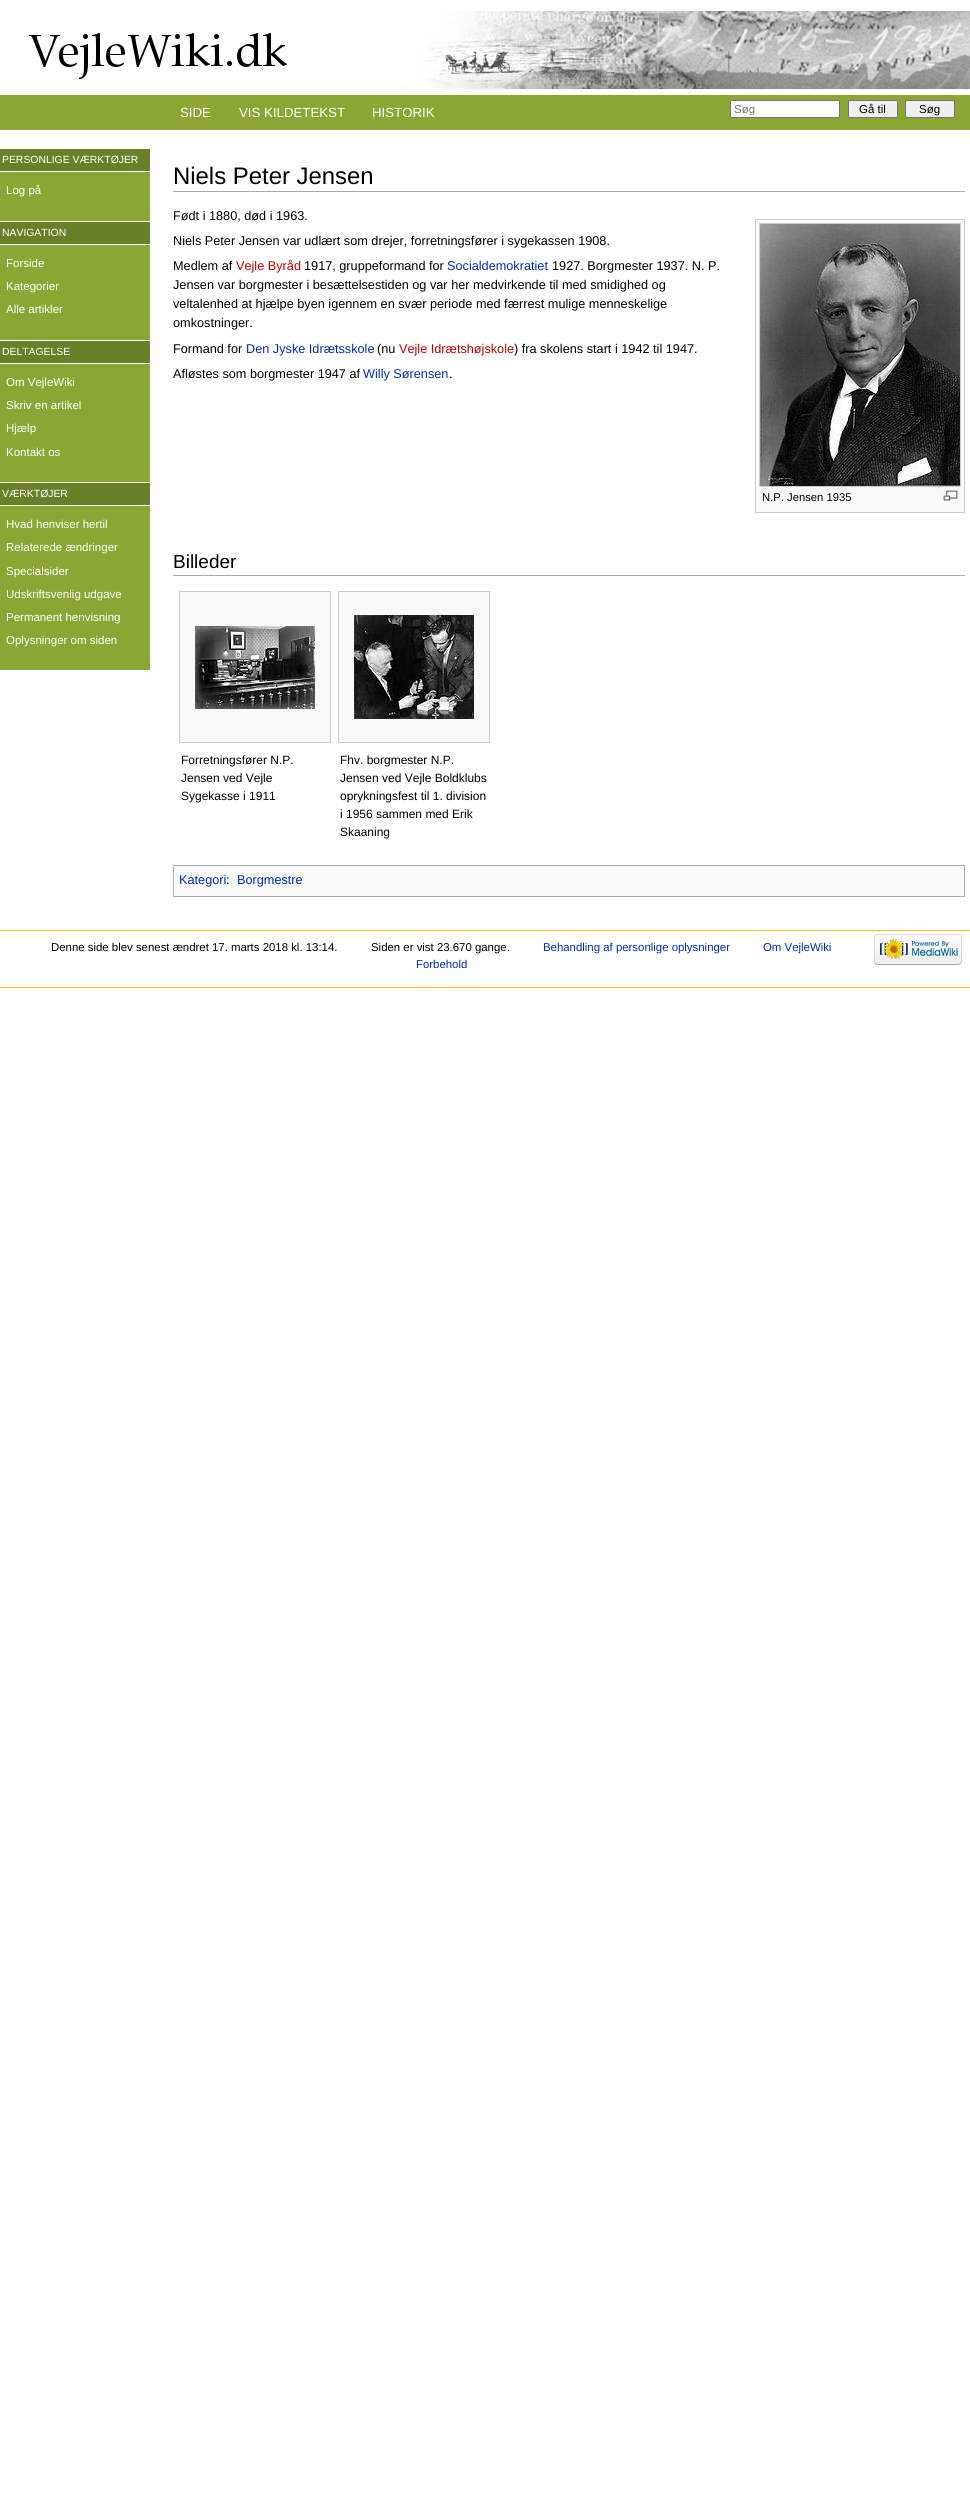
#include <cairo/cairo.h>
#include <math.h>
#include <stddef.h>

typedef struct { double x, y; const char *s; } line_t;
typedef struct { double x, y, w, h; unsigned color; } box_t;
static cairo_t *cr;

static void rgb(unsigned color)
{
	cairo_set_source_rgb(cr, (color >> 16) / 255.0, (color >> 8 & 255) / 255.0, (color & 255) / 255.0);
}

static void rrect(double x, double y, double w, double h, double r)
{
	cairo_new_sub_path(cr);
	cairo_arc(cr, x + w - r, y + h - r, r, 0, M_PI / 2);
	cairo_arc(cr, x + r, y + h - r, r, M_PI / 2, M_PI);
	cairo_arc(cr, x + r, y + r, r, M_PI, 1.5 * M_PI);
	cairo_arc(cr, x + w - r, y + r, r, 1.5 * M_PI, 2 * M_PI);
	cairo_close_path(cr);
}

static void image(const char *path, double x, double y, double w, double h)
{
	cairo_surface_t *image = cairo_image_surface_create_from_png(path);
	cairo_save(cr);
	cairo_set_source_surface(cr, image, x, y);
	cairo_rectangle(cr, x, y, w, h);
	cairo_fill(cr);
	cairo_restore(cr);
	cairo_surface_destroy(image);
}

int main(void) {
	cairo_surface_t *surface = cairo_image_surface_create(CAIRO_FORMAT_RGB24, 970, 2501);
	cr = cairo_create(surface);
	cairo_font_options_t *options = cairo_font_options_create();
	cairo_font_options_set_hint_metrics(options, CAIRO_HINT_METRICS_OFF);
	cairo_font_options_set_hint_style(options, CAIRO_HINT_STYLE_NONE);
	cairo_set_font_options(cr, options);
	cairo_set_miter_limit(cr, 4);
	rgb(0xffffff);
	cairo_paint(cr);
	image("img/1.png", 0, 5, 970, 90);
	rgb(0x8ba635);
	cairo_rectangle(cr, 0, 95, 970, 35);
	cairo_fill(cr);
	rgb(0xffffff);
	rrect(730.5, 100.5, 109, 17, 1.5);
	cairo_fill_preserve(cr);
	rgb(0x767676);
	cairo_set_line_width(cr, 1);
	cairo_stroke(cr);
	rgb(0xefefef);
	rrect(848.5, 100.5, 49, 17, 1.5);
	cairo_fill_preserve(cr);
	rgb(0x767676);
	cairo_stroke(cr);
	rgb(0xefefef);
	rrect(905.5, 100.5, 49, 17, 1.5);
	cairo_fill_preserve(cr);
	rgb(0x767676);
	cairo_stroke(cr);
	{
		static const box_t items[] = {
			{0, 172, 150, 49, 0x8aa735},
			{0, 149, 150, 22, 0x6a8028},
			{0, 245, 150, 95, 0x8aa735},
			{0, 222, 150, 22, 0x6a8028},
			{0, 364, 150, 118, 0x8aa735},
			{0, 341, 150, 22, 0x6a8028},
			{0, 506, 150, 164, 0x8aa735},
			{0, 483, 150, 22, 0x6a8028},
			{173, 191, 792, 1, 0xaaaaaa},
		};
		for (size_t i = 0; i < sizeof items / sizeof *items; i++) {
			rgb(items[i].color);
			cairo_rectangle(cr, items[i].x, items[i].y, items[i].w, items[i].h);
			cairo_fill(cr);
		}
	}
	rgb(0xf9f9f9);
	cairo_rectangle(cr, 755.5, 219.5, 209, 293);
	cairo_fill_preserve(cr);
	rgb(0xcccccc);
	cairo_stroke(cr);
	cairo_rectangle(cr, 759.5, 223.5, 201, 263);
	cairo_stroke(cr);
	image("img/2.png", 760, 224, 200, 262);
	image("img/3.png", 943, 490, 15, 11);
	rgb(0xaaaaaa);
	cairo_rectangle(cr, 173, 575, 792, 1);
	cairo_fill(cr);
	rgb(0xf9f9f9);
	cairo_rectangle(cr, 179.5, 591.5, 151, 151);
	cairo_fill_preserve(cr);
	rgb(0xcccccc);
	cairo_stroke(cr);
	image("img/4.png", 195, 626, 120, 83);
	rgb(0xf9f9f9);
	cairo_rectangle(cr, 338.5, 591.5, 151, 151);
	cairo_fill_preserve(cr);
	rgb(0xcccccc);
	cairo_stroke(cr);
	image("img/5.png", 354, 615, 120, 104);
	rgb(0xf9f9f9);
	cairo_rectangle(cr, 173.5, 865.5, 791, 31);
	cairo_fill_preserve(cr);
	rgb(0xaaaaaa);
	cairo_stroke(cr);
	rgb(0xfabd23);
	cairo_rectangle(cr, 0, 930, 970, 1);
	cairo_fill(cr);
	cairo_rectangle(cr, 0, 987, 970, 1);
	cairo_fill(cr);
	image("img/6.png", 874, 934, 88, 31);
	cairo_select_font_face(cr, "Liberation Sans", CAIRO_FONT_SLANT_NORMAL, CAIRO_FONT_WEIGHT_NORMAL);
	cairo_set_font_size(cr, 13.25);
	rgb(0xffffff);
	{
		static const line_t items[] = {
			{180, 117, "SIDE"},
			{239, 117, "VIS KILDETEKST"},
			{372, 117, "HISTORIK"},
		};
		for (size_t i = 0; i < sizeof items / sizeof *items; i++) {
			cairo_move_to(cr, items[i].x, items[i].y);
			cairo_show_text(cr, items[i].s);
		}
	}
	cairo_save(cr);
	cairo_rectangle(cr, 734, 103, 90, 12);
	cairo_clip(cr);
	cairo_set_font_size(cr, 11.5);
	rgb(0x757575);
	cairo_move_to(cr, 734, 113);
	cairo_show_text(cr, "Søg");
	cairo_restore(cr);
	cairo_set_font_size(cr, 11.5);
	rgb(0x000000);
	cairo_move_to(cr, 859, 113);
	cairo_show_text(cr, "Gå til");
	cairo_move_to(cr, 919, 113);
	cairo_show_text(cr, "Søg");
	cairo_set_font_size(cr, 10.4);
	rgb(0xffffff);
	cairo_move_to(cr, 2, 163);
	cairo_show_text(cr, "PERSONLIGE VÆRKTØJER");
	cairo_set_font_size(cr, 11.5);
	cairo_move_to(cr, 6, 194);
	cairo_show_text(cr, "Log på");
	cairo_set_font_size(cr, 10.4);
	cairo_move_to(cr, 2, 236);
	cairo_show_text(cr, "NAVIGATION");
	cairo_set_font_size(cr, 11.5);
	{
		static const line_t items[] = {
			{6, 267, "Forside"},
			{6, 290, "Kategorier"},
			{6, 313, "Alle artikler"},
		};
		for (size_t i = 0; i < sizeof items / sizeof *items; i++) {
			cairo_move_to(cr, items[i].x, items[i].y);
			cairo_show_text(cr, items[i].s);
		}
	}
	cairo_set_font_size(cr, 10.4);
	cairo_move_to(cr, 2, 355);
	cairo_show_text(cr, "DELTAGELSE");
	cairo_set_font_size(cr, 11.5);
	{
		static const line_t items[] = {
			{6, 386, "Om VejleWiki"},
			{6, 409, "Skriv en artikel"},
			{6, 432, "Hjælp"},
			{6, 456, "Kontakt os"},
		};
		for (size_t i = 0; i < sizeof items / sizeof *items; i++) {
			cairo_move_to(cr, items[i].x, items[i].y);
			cairo_show_text(cr, items[i].s);
		}
	}
	cairo_set_font_size(cr, 10.4);
	cairo_move_to(cr, 2, 497);
	cairo_show_text(cr, "VÆRKTØJER");
	cairo_set_font_size(cr, 11.5);
	{
		static const line_t items[] = {
			{6, 528, "Hvad henviser hertil"},
			{6, 551, "Relaterede ændringer"},
			{6, 575, "Specialsider"},
			{6, 598, "Udskriftsvenlig udgave"},
			{6, 621, "Permanent henvisning"},
			{6, 644, "Oplysninger om siden"},
		};
		for (size_t i = 0; i < sizeof items / sizeof *items; i++) {
			cairo_move_to(cr, items[i].x, items[i].y);
			cairo_show_text(cr, items[i].s);
		}
	}
	cairo_set_font_size(cr, 23.9);
	rgb(0x000000);
	cairo_move_to(cr, 173, 184);
	cairo_show_text(cr, "Niels Peter Jensen");
	cairo_set_font_size(cr, 12.7);
	{
		static const line_t items[] = {
			{173, 220, "Født i 1880, død i 1963."},
			{173, 245, "Niels Peter Jensen var udlært som drejer, forretningsfører i sygekassen 1908."},
			{173, 270, "Medlem af"},
		};
		for (size_t i = 0; i < sizeof items / sizeof *items; i++) {
			cairo_move_to(cr, items[i].x, items[i].y);
			cairo_show_text(cr, items[i].s);
		}
	}
	rgb(0xba0000);
	cairo_move_to(cr, 236, 270);
	cairo_show_text(cr, "Vejle Byråd");
	rgb(0x000000);
	cairo_move_to(cr, 304, 270);
	cairo_show_text(cr, "1917, gruppeformand for");
	rgb(0x002bb8);
	cairo_move_to(cr, 447, 270);
	cairo_show_text(cr, "Socialdemokratiet");
	rgb(0x000000);
	{
		static const line_t items[] = {
			{552, 270, "1927. Borgmester 1937. N. P."},
			{173, 289, "Jensen var borgmester i besættelsestiden og var her medvirkende til med smidighed og"},
			{173, 308, "veltalenhed at hjælpe byen igennem en svær periode med færrest mulige menneskelige"},
			{173, 327, "omkostninger."},
			{173, 353, "Formand for"},
		};
		for (size_t i = 0; i < sizeof items / sizeof *items; i++) {
			cairo_move_to(cr, items[i].x, items[i].y);
			cairo_show_text(cr, items[i].s);
		}
	}
	rgb(0x002bb8);
	cairo_move_to(cr, 246, 353);
	cairo_show_text(cr, "Den Jyske Idrætsskole");
	rgb(0x000000);
	cairo_move_to(cr, 377, 353);
	cairo_show_text(cr, "(nu");
	rgb(0xba0000);
	cairo_move_to(cr, 399, 353);
	cairo_show_text(cr, "Vejle Idrætshøjskole");
	rgb(0x000000);
	cairo_move_to(cr, 514, 353);
	cairo_show_text(cr, ") fra skolens start i 1942 til 1947.");
	cairo_move_to(cr, 173, 378);
	cairo_show_text(cr, "Afløstes som borgmester 1947 af");
	rgb(0x002bb8);
	cairo_move_to(cr, 363, 378);
	cairo_show_text(cr, "Willy Sørensen");
	rgb(0x000000);
	cairo_move_to(cr, 449, 378);
	cairo_show_text(cr, ".");
	cairo_set_font_size(cr, 11.25);
	cairo_move_to(cr, 762, 501);
	cairo_show_text(cr, "N.P. Jensen 1935");
	cairo_set_font_size(cr, 19);
	cairo_move_to(cr, 173, 568);
	cairo_show_text(cr, "Billeder");
	cairo_set_font_size(cr, 12);
	{
		static const line_t items[] = {
			{181, 764, "Forretningsfører N.P."},
			{181, 782, "Jensen ved Vejle"},
			{181, 800, "Sygekasse i 1911"},
			{340, 764, "Fhv. borgmester N.P."},
			{340, 782, "Jensen ved Vejle Boldklubs"},
			{340, 800, "oprykningsfest til 1. division"},
			{340, 818, "i 1956 sammen med Erik"},
			{340, 836, "Skaaning"},
		};
		for (size_t i = 0; i < sizeof items / sizeof *items; i++) {
			cairo_move_to(cr, items[i].x, items[i].y);
			cairo_show_text(cr, items[i].s);
		}
	}
	cairo_set_font_size(cr, 12.7);
	rgb(0x002bb8);
	cairo_move_to(cr, 179, 884);
	cairo_show_text(cr, "Kategori");
	rgb(0x000000);
	cairo_move_to(cr, 226, 884);
	cairo_show_text(cr, ":");
	rgb(0x002bb8);
	cairo_move_to(cr, 237, 884);
	cairo_show_text(cr, "Borgmestre");
	cairo_set_font_size(cr, 11.4);
	rgb(0x000000);
	cairo_move_to(cr, 51, 951);
	cairo_show_text(cr, "Denne side blev senest ændret 17. marts 2018 kl. 13:14.");
	cairo_move_to(cr, 371, 951);
	cairo_show_text(cr, "Siden er vist 23.670 gange.");
	rgb(0x002bb8);
	{
		static const line_t items[] = {
			{543, 951, "Behandling af personlige oplysninger"},
			{763, 951, "Om VejleWiki"},
			{416, 968, "Forbehold"},
		};
		for (size_t i = 0; i < sizeof items / sizeof *items; i++) {
			cairo_move_to(cr, items[i].x, items[i].y);
			cairo_show_text(cr, items[i].s);
		}
	}
	cairo_surface_write_to_png(surface, "page.png");
	cairo_font_options_destroy(options);
	cairo_destroy(cr);
	cairo_surface_destroy(surface);
	return 0;
}
